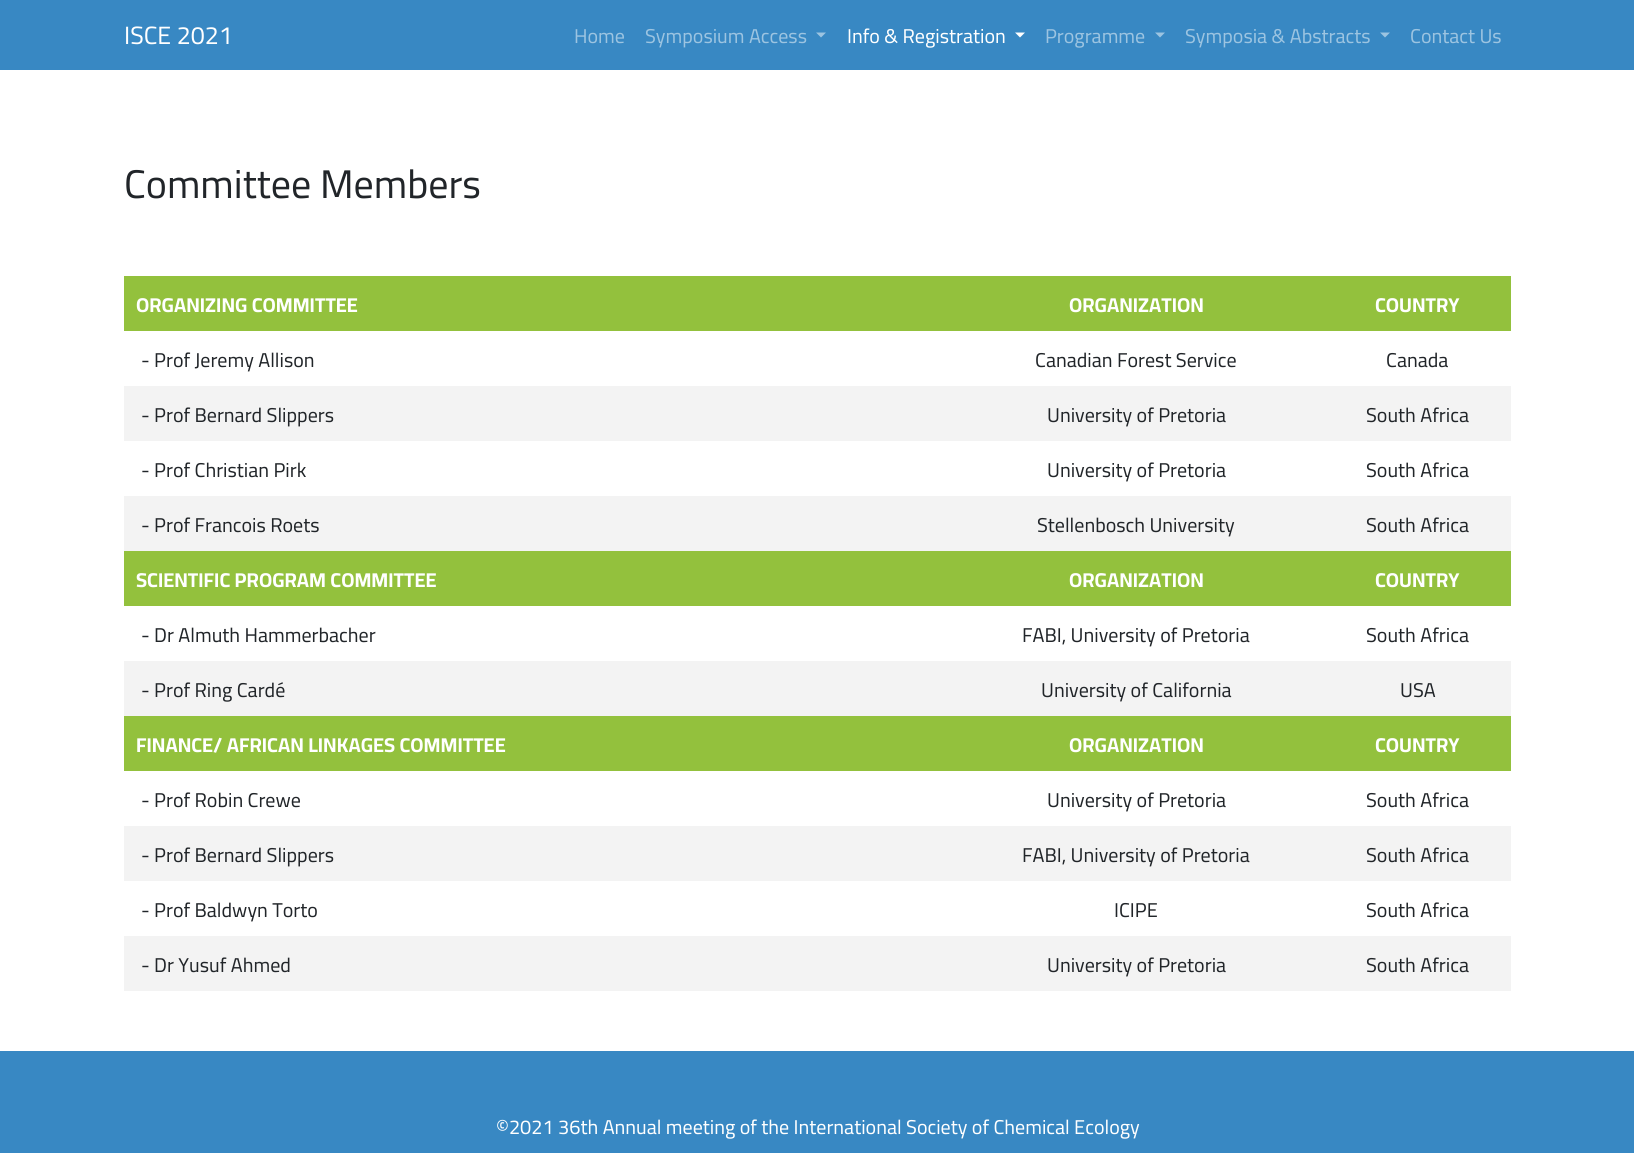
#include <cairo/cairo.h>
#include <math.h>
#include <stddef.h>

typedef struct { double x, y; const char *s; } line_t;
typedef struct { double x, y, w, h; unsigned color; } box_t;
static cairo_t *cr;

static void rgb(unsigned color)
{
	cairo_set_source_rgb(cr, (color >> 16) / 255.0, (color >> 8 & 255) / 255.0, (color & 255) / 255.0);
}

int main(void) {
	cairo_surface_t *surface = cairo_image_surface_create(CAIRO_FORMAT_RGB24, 1634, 1153);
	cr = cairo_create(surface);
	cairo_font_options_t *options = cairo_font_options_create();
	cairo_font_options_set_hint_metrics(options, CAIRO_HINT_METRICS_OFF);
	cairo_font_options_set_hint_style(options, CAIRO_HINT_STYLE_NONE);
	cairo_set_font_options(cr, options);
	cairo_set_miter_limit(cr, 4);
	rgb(0xffffff);
	cairo_paint(cr);
	rgb(0x3888c3);
	cairo_rectangle(cr, 0, 0, 1634, 70);
	cairo_fill(cr);
	rgb(0x9cc4e1);
	cairo_new_path(cr);
	cairo_move_to(cr, 816, 32.5);
	cairo_line_to(cr, 826, 32.5);
	cairo_line_to(cr, 821, 37.5);
	cairo_close_path(cr);
	cairo_fill(cr);
	rgb(0xffffff);
	cairo_new_path(cr);
	cairo_move_to(cr, 1015, 32.5);
	cairo_line_to(cr, 1025, 32.5);
	cairo_line_to(cr, 1020, 37.5);
	cairo_close_path(cr);
	cairo_fill(cr);
	rgb(0x9cc4e1);
	cairo_new_path(cr);
	cairo_move_to(cr, 1155, 32.5);
	cairo_line_to(cr, 1165, 32.5);
	cairo_line_to(cr, 1160, 37.5);
	cairo_close_path(cr);
	cairo_fill(cr);
	cairo_new_path(cr);
	cairo_move_to(cr, 1380, 32.5);
	cairo_line_to(cr, 1390, 32.5);
	cairo_line_to(cr, 1385, 37.5);
	cairo_close_path(cr);
	cairo_fill(cr);
	{
		static const box_t items[] = {
			{124, 276, 1387, 55, 0x93c13d},
			{124, 386, 1387, 55, 0xf3f3f3},
			{124, 496, 1387, 55, 0xf3f3f3},
			{124, 551, 1387, 55, 0x93c13d},
			{124, 661, 1387, 55, 0xf3f3f3},
			{124, 716, 1387, 55, 0x93c13d},
			{124, 826, 1387, 55, 0xf3f3f3},
			{124, 936, 1387, 55, 0xf3f3f3},
			{0, 1051, 1634, 102, 0x3888c3},
		};
		for (size_t i = 0; i < sizeof items / sizeof *items; i++) {
			rgb(items[i].color);
			cairo_rectangle(cr, items[i].x, items[i].y, items[i].w, items[i].h);
			cairo_fill(cr);
		}
	}
	cairo_select_font_face(cr, "Cairo", CAIRO_FONT_SLANT_NORMAL, CAIRO_FONT_WEIGHT_NORMAL);
	cairo_set_font_size(cr, 25);
	rgb(0xffffff);
	cairo_move_to(cr, 124, 44);
	cairo_show_text(cr, "ISCE 2021");
	cairo_set_font_size(cr, 20);
	rgb(0x9cc4e1);
	cairo_move_to(cr, 574, 43);
	cairo_show_text(cr, "Home");
	cairo_move_to(cr, 645, 43);
	cairo_show_text(cr, "Symposium Access");
	rgb(0xffffff);
	cairo_move_to(cr, 847, 43);
	cairo_show_text(cr, "Info & Registration");
	rgb(0x9cc4e1);
	{
		static const line_t items[] = {
			{1045, 43, "Programme"},
			{1185, 43, "Symposia & Abstracts"},
			{1410, 43, "Contact Us"},
		};
		for (size_t i = 0; i < sizeof items / sizeof *items; i++) {
			cairo_move_to(cr, items[i].x, items[i].y);
			cairo_show_text(cr, items[i].s);
		}
	}
	cairo_set_font_size(cr, 40);
	rgb(0x212529);
	cairo_move_to(cr, 124, 198);
	cairo_show_text(cr, "Committee Members");
	cairo_select_font_face(cr, "Cairo", CAIRO_FONT_SLANT_NORMAL, CAIRO_FONT_WEIGHT_BOLD);
	cairo_set_font_size(cr, 20);
	rgb(0xffffff);
	{
		static const line_t items[] = {
			{136, 312, "ORGANIZING COMMITTEE"},
			{1069, 312, "ORGANIZATION"},
			{1375, 312, "COUNTRY"},
		};
		for (size_t i = 0; i < sizeof items / sizeof *items; i++) {
			cairo_move_to(cr, items[i].x, items[i].y);
			cairo_show_text(cr, items[i].s);
		}
	}
	cairo_select_font_face(cr, "Cairo", CAIRO_FONT_SLANT_NORMAL, CAIRO_FONT_WEIGHT_NORMAL);
	rgb(0x212529);
	{
		static const line_t items[] = {
			{141, 367, "- Prof Jeremy Allison"},
			{1035, 367, "Canadian Forest Service"},
			{1386, 367, "Canada"},
			{141, 422, "- Prof Bernard Slippers"},
			{1047, 422, "University of Pretoria"},
			{1366, 422, "South Africa"},
			{141, 477, "- Prof Christian Pirk"},
			{1047, 477, "University of Pretoria"},
			{1366, 477, "South Africa"},
			{141, 532, "- Prof Francois Roets"},
			{1037, 532, "Stellenbosch University"},
			{1366, 532, "South Africa"},
		};
		for (size_t i = 0; i < sizeof items / sizeof *items; i++) {
			cairo_move_to(cr, items[i].x, items[i].y);
			cairo_show_text(cr, items[i].s);
		}
	}
	cairo_select_font_face(cr, "Cairo", CAIRO_FONT_SLANT_NORMAL, CAIRO_FONT_WEIGHT_BOLD);
	rgb(0xffffff);
	{
		static const line_t items[] = {
			{136, 587, "SCIENTIFIC PROGRAM COMMITTEE"},
			{1069, 587, "ORGANIZATION"},
			{1375, 587, "COUNTRY"},
		};
		for (size_t i = 0; i < sizeof items / sizeof *items; i++) {
			cairo_move_to(cr, items[i].x, items[i].y);
			cairo_show_text(cr, items[i].s);
		}
	}
	cairo_select_font_face(cr, "Cairo", CAIRO_FONT_SLANT_NORMAL, CAIRO_FONT_WEIGHT_NORMAL);
	rgb(0x212529);
	{
		static const line_t items[] = {
			{141, 642, "- Dr Almuth Hammerbacher"},
			{1022, 642, "FABI, University of Pretoria"},
			{1366, 642, "South Africa"},
			{141, 697, "- Prof Ring Cardé"},
			{1041, 697, "University of California"},
			{1400, 697, "USA"},
		};
		for (size_t i = 0; i < sizeof items / sizeof *items; i++) {
			cairo_move_to(cr, items[i].x, items[i].y);
			cairo_show_text(cr, items[i].s);
		}
	}
	cairo_select_font_face(cr, "Cairo", CAIRO_FONT_SLANT_NORMAL, CAIRO_FONT_WEIGHT_BOLD);
	rgb(0xffffff);
	{
		static const line_t items[] = {
			{136, 752, "FINANCE/ AFRICAN LINKAGES COMMITTEE"},
			{1069, 752, "ORGANIZATION"},
			{1375, 752, "COUNTRY"},
		};
		for (size_t i = 0; i < sizeof items / sizeof *items; i++) {
			cairo_move_to(cr, items[i].x, items[i].y);
			cairo_show_text(cr, items[i].s);
		}
	}
	cairo_select_font_face(cr, "Cairo", CAIRO_FONT_SLANT_NORMAL, CAIRO_FONT_WEIGHT_NORMAL);
	rgb(0x212529);
	{
		static const line_t items[] = {
			{141, 807, "- Prof Robin Crewe"},
			{1047, 807, "University of Pretoria"},
			{1366, 807, "South Africa"},
			{141, 862, "- Prof Bernard Slippers"},
			{1022, 862, "FABI, University of Pretoria"},
			{1366, 862, "South Africa"},
			{141, 917, "- Prof Baldwyn Torto"},
			{1114, 917, "ICIPE"},
			{1366, 917, "South Africa"},
			{141, 972, "- Dr Yusuf Ahmed"},
			{1047, 972, "University of Pretoria"},
			{1366, 972, "South Africa"},
		};
		for (size_t i = 0; i < sizeof items / sizeof *items; i++) {
			cairo_move_to(cr, items[i].x, items[i].y);
			cairo_show_text(cr, items[i].s);
		}
	}
	rgb(0xffffff);
	cairo_move_to(cr, 496, 1134);
	cairo_show_text(cr, "©2021 36th Annual meeting of the International Society of Chemical Ecology");
	cairo_surface_write_to_png(surface, "page.png");
	cairo_font_options_destroy(options);
	cairo_destroy(cr);
	cairo_surface_destroy(surface);
	return 0;
}
